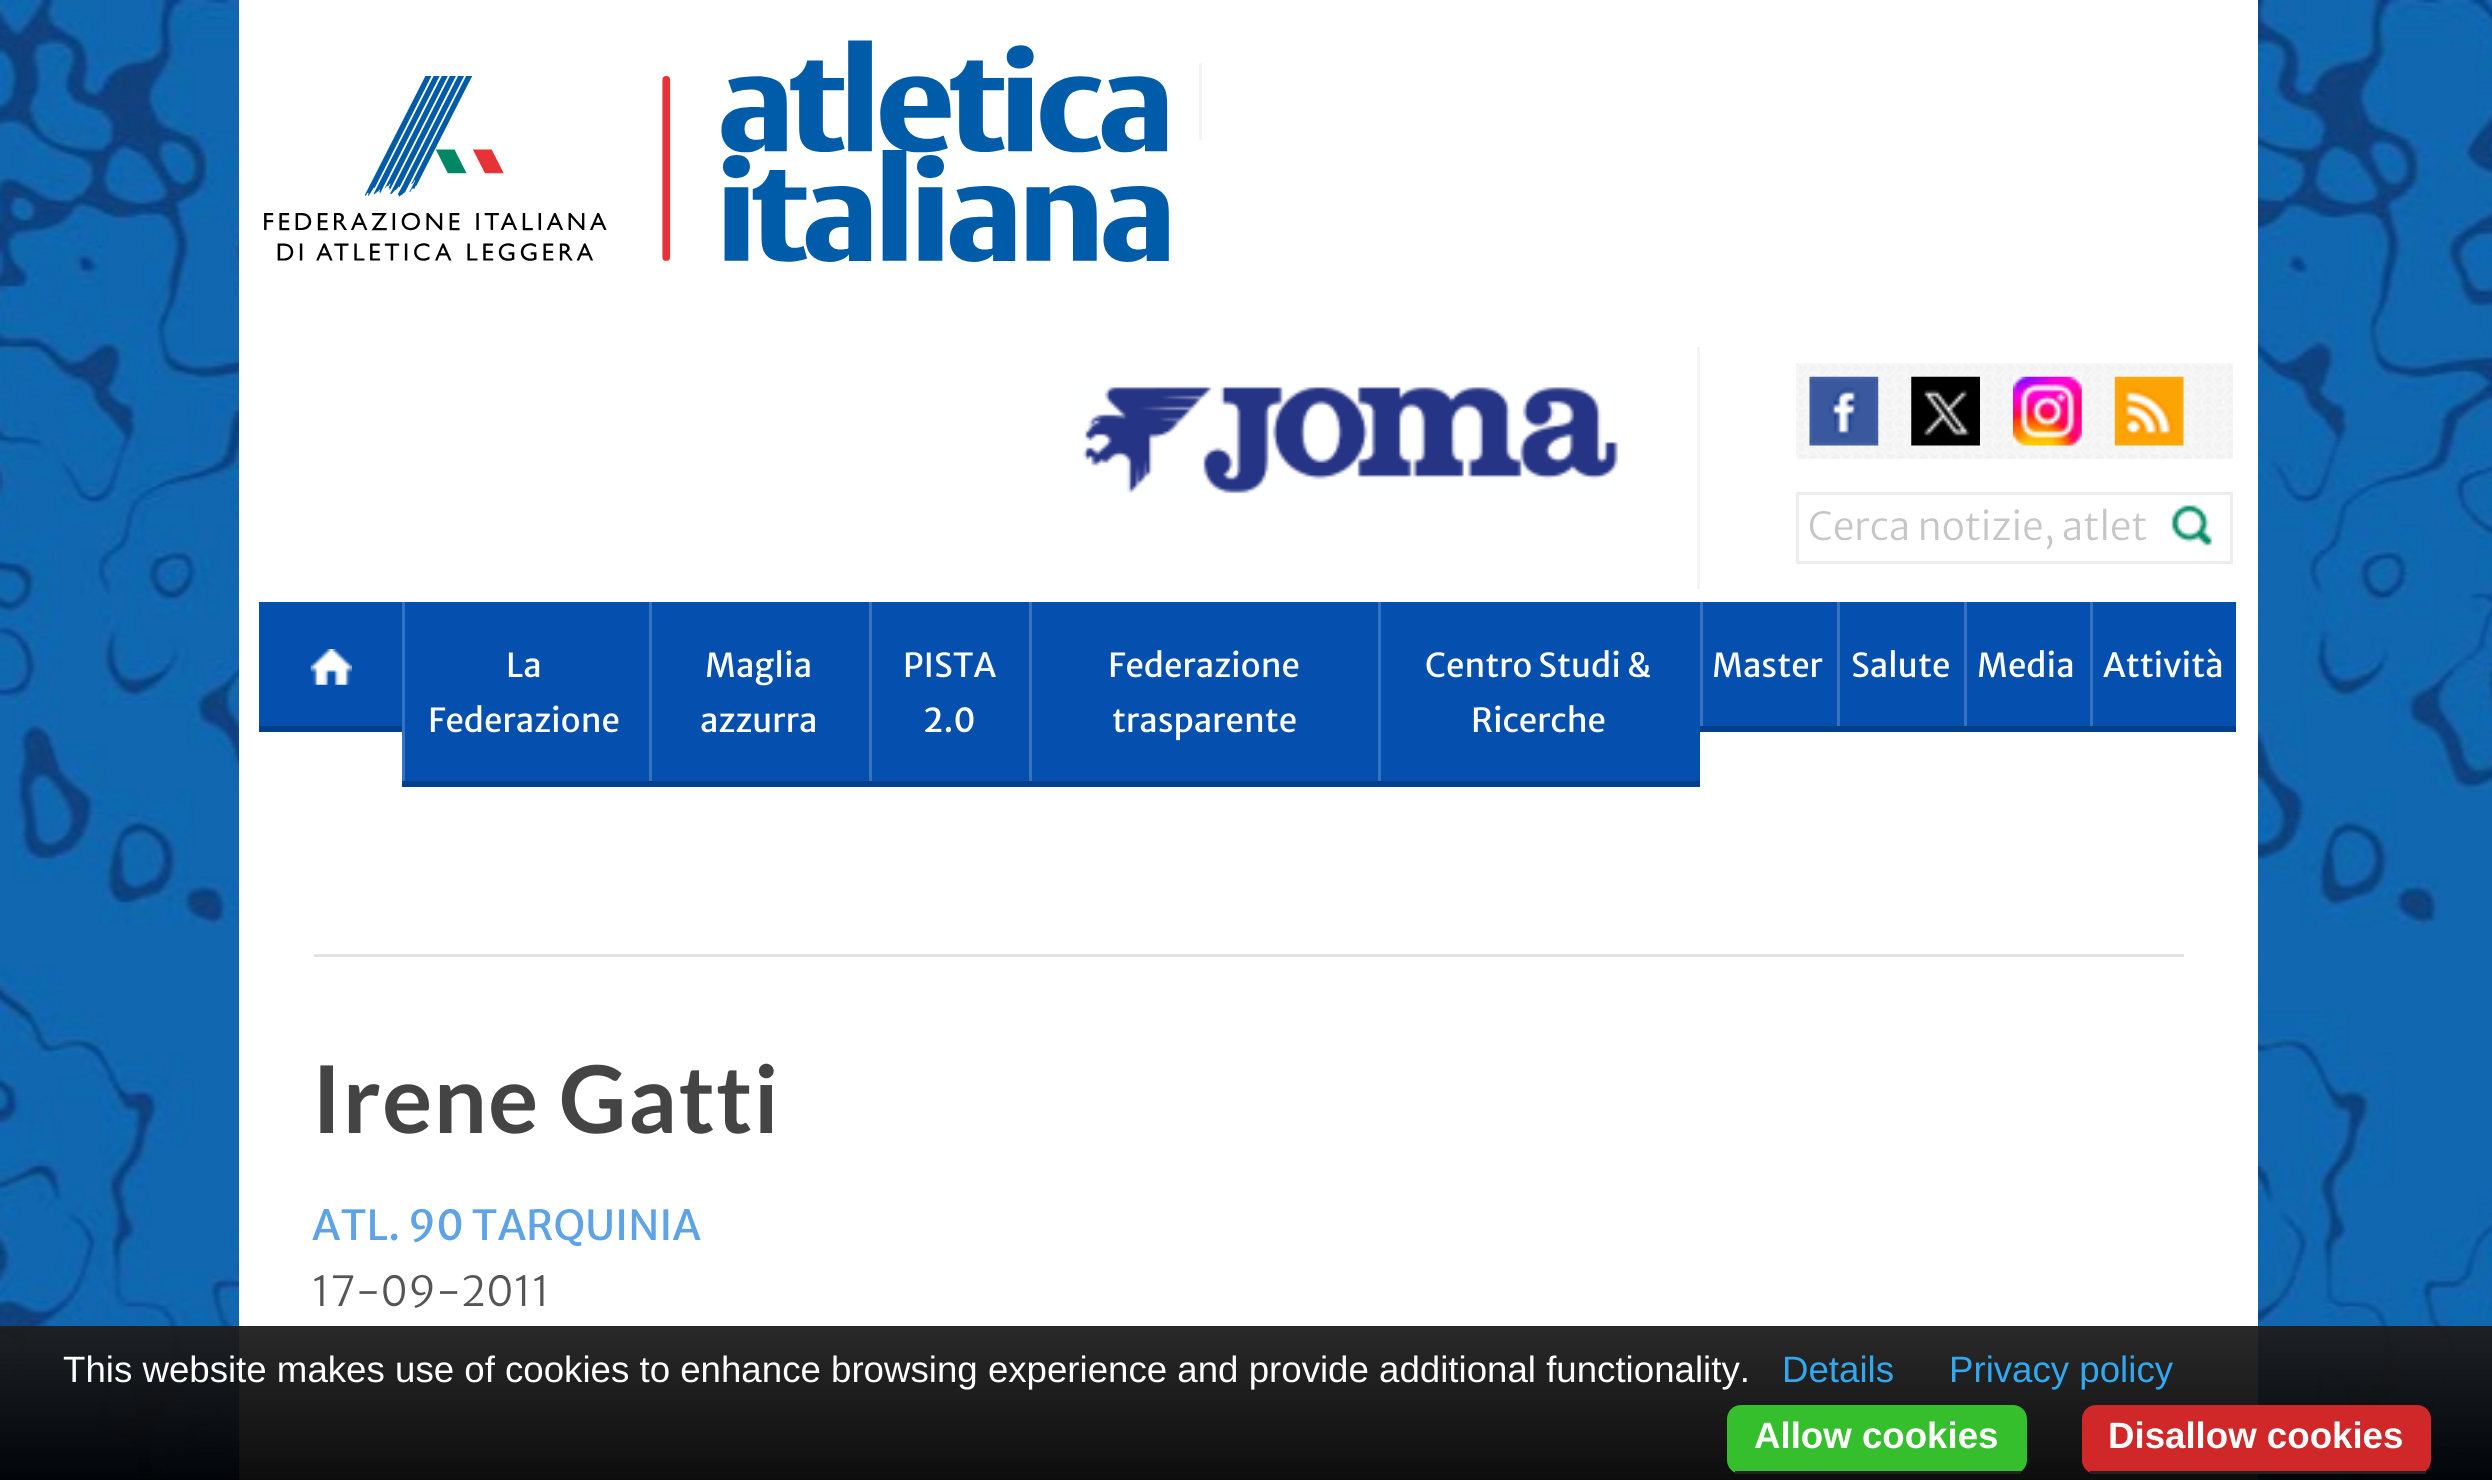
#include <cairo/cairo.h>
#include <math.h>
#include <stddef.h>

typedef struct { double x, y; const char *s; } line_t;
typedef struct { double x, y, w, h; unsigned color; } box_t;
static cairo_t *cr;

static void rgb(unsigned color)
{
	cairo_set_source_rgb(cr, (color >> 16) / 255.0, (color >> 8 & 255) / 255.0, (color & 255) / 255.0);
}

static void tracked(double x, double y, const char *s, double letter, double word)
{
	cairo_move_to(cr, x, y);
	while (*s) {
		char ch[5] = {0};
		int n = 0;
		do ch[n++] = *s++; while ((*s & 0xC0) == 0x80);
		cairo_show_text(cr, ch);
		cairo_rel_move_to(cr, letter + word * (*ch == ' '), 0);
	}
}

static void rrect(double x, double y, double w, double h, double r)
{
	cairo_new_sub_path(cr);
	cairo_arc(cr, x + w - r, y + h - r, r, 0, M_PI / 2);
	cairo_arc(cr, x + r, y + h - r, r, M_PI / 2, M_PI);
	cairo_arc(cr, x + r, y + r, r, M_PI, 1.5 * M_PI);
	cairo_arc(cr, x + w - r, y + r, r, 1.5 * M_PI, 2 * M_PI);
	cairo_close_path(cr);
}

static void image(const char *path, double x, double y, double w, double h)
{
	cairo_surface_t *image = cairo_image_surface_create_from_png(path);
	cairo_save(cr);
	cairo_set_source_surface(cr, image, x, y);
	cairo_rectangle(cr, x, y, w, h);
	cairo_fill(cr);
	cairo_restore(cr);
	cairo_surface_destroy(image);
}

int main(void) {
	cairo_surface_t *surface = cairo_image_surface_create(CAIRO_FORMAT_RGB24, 2492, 1480);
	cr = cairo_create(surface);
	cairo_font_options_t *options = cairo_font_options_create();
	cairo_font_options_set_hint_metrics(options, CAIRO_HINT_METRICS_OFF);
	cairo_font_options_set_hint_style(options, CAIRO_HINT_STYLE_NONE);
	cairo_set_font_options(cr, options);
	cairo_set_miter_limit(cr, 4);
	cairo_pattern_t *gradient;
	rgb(0xffffff);
	cairo_paint(cr);
	image("img/1.png", 0, 0, 2492, 1480);
	rgb(0xffffff);
	cairo_rectangle(cr, 239, 0, 2019, 1480);
	cairo_fill(cr);
	image("img/2.png", 264, 40, 905, 222);
	rgb(0xf4f4f4);
	cairo_rectangle(cr, 1199, 63, 3, 77);
	cairo_fill(cr);
	cairo_rectangle(cr, 1697, 347, 3, 242);
	cairo_fill(cr);
	image("img/3.png", 1082, 385, 536, 109);
	rgb(0xf8f8f8);
	cairo_rectangle(cr, 1796, 363, 437, 1);
	cairo_fill(cr);
	image("img/4.png", 1796, 364, 437, 95);
	image("img/5.png", 1809, 376, 70, 70);
	image("img/6.png", 1911, 376, 69, 70);
	image("img/7.png", 2013, 376, 69, 70);
	image("img/8.png", 2114, 376, 70, 70);
	cairo_rectangle(cr, 1797.5, 493.5, 434, 69);
	rgb(0xededed);
	cairo_set_line_width(cr, 3);
	cairo_stroke(cr);
	image("img/9.png", 2171, 505, 41, 41);
	rgb(0x054fae);
	cairo_rectangle(cr, 259, 602, 143, 124);
	cairo_fill(cr);
	rgb(0x043f8b);
	cairo_rectangle(cr, 259, 726, 143, 6);
	cairo_fill(cr);
	image("img/10.png", 310, 649, 42, 36);
	{
		static const box_t items[] = {
			{405, 602, 244, 179, 0x054fae},
			{402, 781, 1298, 6, 0x043f8b},
			{402, 602, 3, 179, 0x3772be},
			{652, 602, 217, 179, 0x054fae},
			{649, 602, 3, 179, 0x3772be},
			{872, 602, 157, 179, 0x054fae},
			{869, 602, 3, 179, 0x3772be},
			{1032, 602, 346, 179, 0x054fae},
			{1029, 602, 3, 179, 0x3772be},
			{1381, 602, 319, 179, 0x054fae},
			{1378, 602, 3, 179, 0x3772be},
			{1703, 602, 134, 124, 0x054fae},
			{1700, 726, 536, 6, 0x043f8b},
			{1700, 602, 3, 124, 0x3772be},
			{1840, 602, 124, 124, 0x054fae},
			{1837, 602, 3, 124, 0x3772be},
			{1967, 602, 123, 124, 0x054fae},
			{1964, 602, 3, 124, 0x3772be},
			{2093, 602, 143, 124, 0x054fae},
			{2090, 602, 3, 124, 0x3772be},
			{314, 954, 1870, 3, 0xe2e2e2},
		};
		for (size_t i = 0; i < sizeof items / sizeof *items; i++) {
			rgb(items[i].color);
			cairo_rectangle(cr, items[i].x, items[i].y, items[i].w, items[i].h);
			cairo_fill(cr);
		}
	}
	gradient = cairo_pattern_create_linear(1247, 1325, 1247, 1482);
	cairo_pattern_add_color_stop_rgba(gradient, 0, 0.118, 0.118, 0.118, 0.95);
	cairo_pattern_add_color_stop_rgba(gradient, 1, 0, 0, 0, 0.95);
	cairo_set_source(cr, gradient);
	cairo_pattern_destroy(gradient);
	cairo_rectangle(cr, 0, 1326, 2492, 154);
	cairo_fill(cr);
	rgb(0x36bf2d);
	rrect(1727, 1405, 300, 69, 14);
	cairo_fill(cr);
	rgb(0x222222);
	cairo_rectangle(cr, 1735, 1471, 286, 3);
	cairo_fill(cr);
	rgb(0xd02828);
	rrect(2082, 1405, 349, 69, 14);
	cairo_fill(cr);
	rgb(0x222222);
	cairo_rectangle(cr, 2090, 1471, 336, 3);
	cairo_fill(cr);
	cairo_select_font_face(cr, "Merriweather Sans Light", CAIRO_FONT_SLANT_NORMAL, CAIRO_FONT_WEIGHT_NORMAL);
	cairo_set_font_size(cr, 38.5);
	rgb(0xc6c6c6);
	cairo_move_to(cr, 1808, 540);
	cairo_show_text(cr, "Cerca notizie, atlet");
	cairo_select_font_face(cr, "Merriweather Sans", CAIRO_FONT_SLANT_NORMAL, CAIRO_FONT_WEIGHT_NORMAL);
	cairo_set_font_size(cr, 33);
	rgb(0xffffff);
	{
		static const line_t items[] = {
			{506, 677, "La"},
			{428, 732, "Federazione"},
			{705, 677, "Maglia"},
			{700, 732, "azzurra"},
			{903, 677, "PISTA"},
			{923, 732, "2.0"},
			{1108, 677, "Federazione"},
			{1112, 732, "trasparente"},
			{1425, 677, "Centro Studi &"},
			{1471, 732, "Ricerche"},
			{1712, 677, "Master"},
			{1851, 677, "Salute"},
			{1977, 677, "Media"},
			{2103, 677, "Attività"},
		};
		for (size_t i = 0; i < sizeof items / sizeof *items; i++) {
			cairo_move_to(cr, items[i].x, items[i].y);
			cairo_show_text(cr, items[i].s);
		}
	}
	cairo_select_font_face(cr, "Lato", CAIRO_FONT_SLANT_NORMAL, CAIRO_FONT_WEIGHT_BOLD);
	cairo_set_font_size(cr, 93.5);
	rgb(0x444444);
	tracked(312, 1133, "Irene Gatti", 1.4, 0);
	cairo_select_font_face(cr, "Merriweather Sans", CAIRO_FONT_SLANT_NORMAL, CAIRO_FONT_WEIGHT_NORMAL);
	cairo_set_font_size(cr, 41.25);
	rgb(0x5ea2e7);
	cairo_move_to(cr, 312, 1240);
	cairo_show_text(cr, "ATL. 90 TARQUINIA");
	cairo_select_font_face(cr, "Merriweather Sans Light", CAIRO_FONT_SLANT_NORMAL, CAIRO_FONT_WEIGHT_NORMAL);
	rgb(0x555555);
	cairo_move_to(cr, 312, 1306);
	cairo_show_text(cr, "17-09-2011");
	cairo_select_font_face(cr, "Liberation Sans", CAIRO_FONT_SLANT_NORMAL, CAIRO_FONT_WEIGHT_NORMAL);
	cairo_set_font_size(cr, 36.65);
	rgb(0xffffff);
	cairo_move_to(cr, 63, 1382);
	cairo_show_text(cr, "This website makes use of cookies to enhance browsing experience and provide additional functionality.");
	rgb(0x31a8f0);
	cairo_move_to(cr, 1782, 1382);
	cairo_show_text(cr, "Details");
	cairo_move_to(cr, 1949, 1382);
	cairo_show_text(cr, "Privacy policy");
	cairo_select_font_face(cr, "Liberation Sans", CAIRO_FONT_SLANT_NORMAL, CAIRO_FONT_WEIGHT_BOLD);
	rgb(0xffffff);
	cairo_move_to(cr, 1754, 1448);
	cairo_show_text(cr, "Allow cookies");
	cairo_move_to(cr, 2108, 1448);
	cairo_show_text(cr, "Disallow cookies");
	cairo_surface_write_to_png(surface, "page.png");
	cairo_font_options_destroy(options);
	cairo_destroy(cr);
	cairo_surface_destroy(surface);
	return 0;
}
